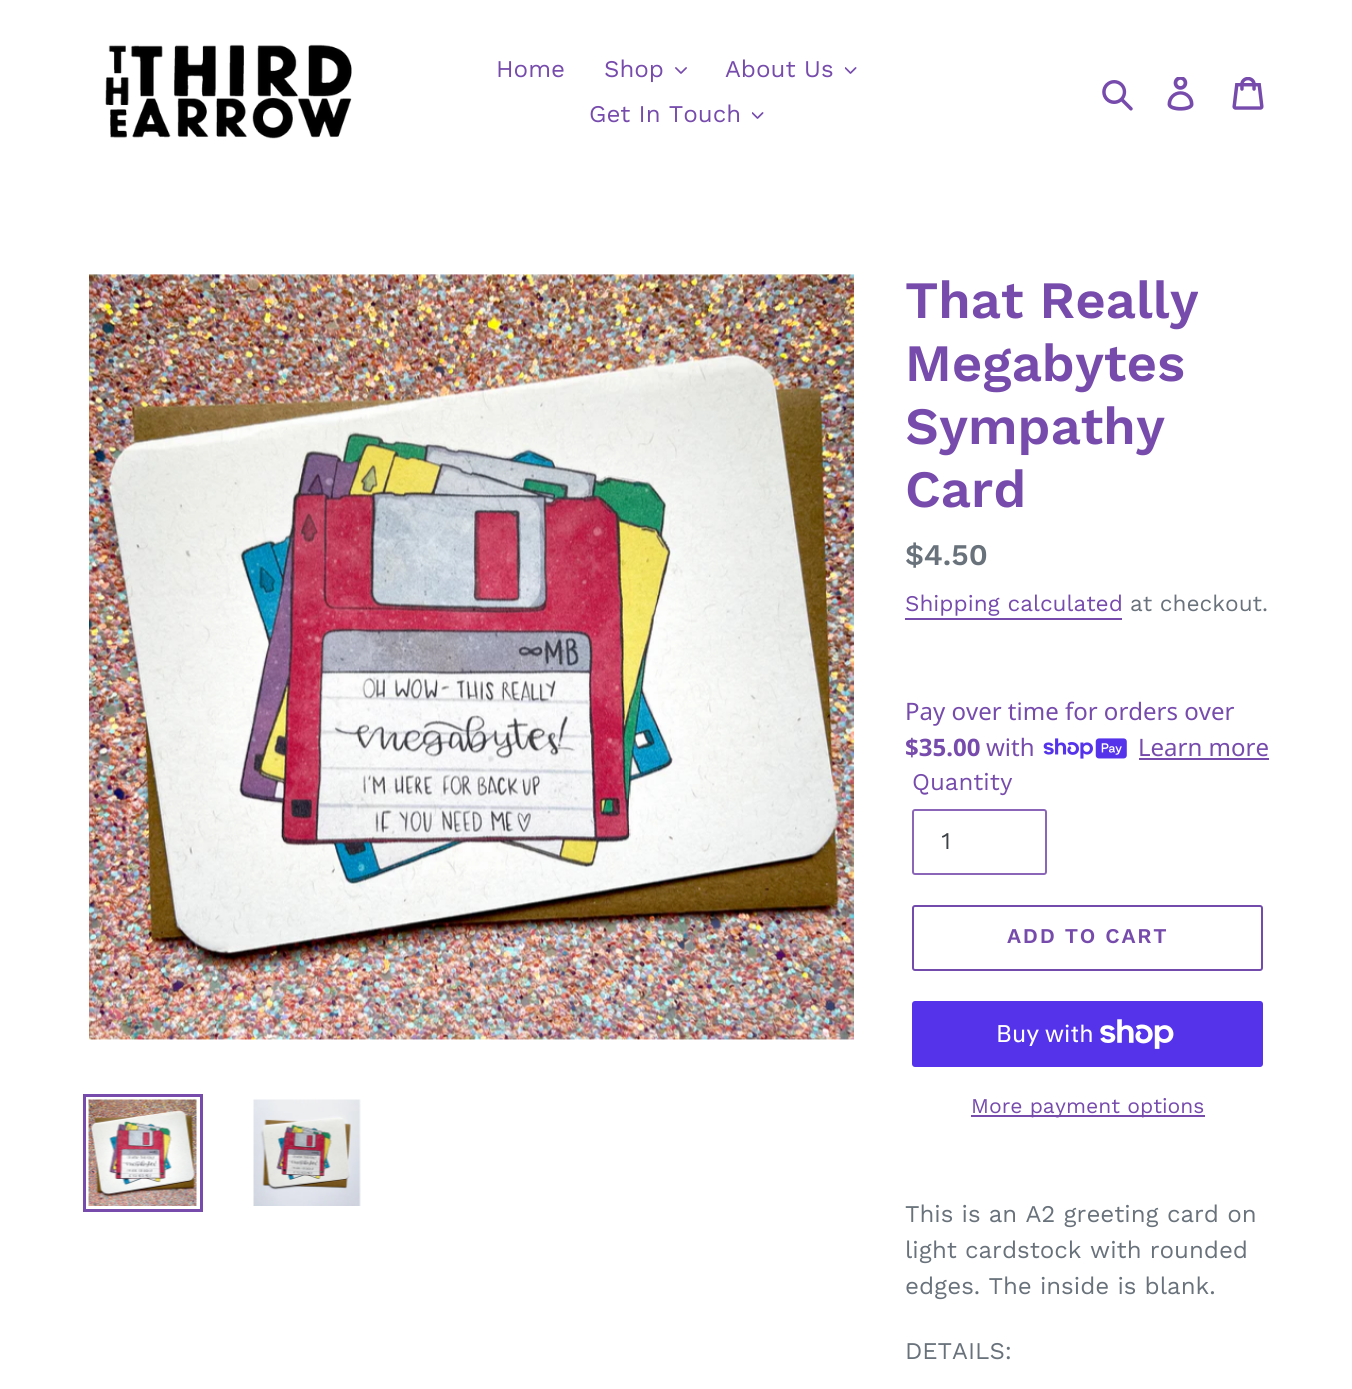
#include <cairo/cairo.h>
#include <math.h>
#include <stddef.h>

typedef struct { double x, y; const char *s; } line_t;
static cairo_t *cr;

static void rgb(unsigned color)
{
	cairo_set_source_rgb(cr, (color >> 16) / 255.0, (color >> 8 & 255) / 255.0, (color & 255) / 255.0);
}

static void tracked(double x, double y, const char *s, double letter, double word)
{
	cairo_move_to(cr, x, y);
	while (*s) {
		char ch[5] = {0};
		int n = 0;
		do ch[n++] = *s++; while ((*s & 0xC0) == 0x80);
		cairo_show_text(cr, ch);
		cairo_rel_move_to(cr, letter + word * (*ch == ' '), 0);
	}
}

static void rrect(double x, double y, double w, double h, double r)
{
	cairo_new_sub_path(cr);
	cairo_arc(cr, x + w - r, y + h - r, r, 0, M_PI / 2);
	cairo_arc(cr, x + r, y + h - r, r, M_PI / 2, M_PI);
	cairo_arc(cr, x + r, y + r, r, M_PI, 1.5 * M_PI);
	cairo_arc(cr, x + w - r, y + r, r, 1.5 * M_PI, 2 * M_PI);
	cairo_close_path(cr);
}

static void image(const char *path, double x, double y, double w, double h)
{
	cairo_surface_t *image = cairo_image_surface_create_from_png(path);
	cairo_save(cr);
	cairo_set_source_surface(cr, image, x, y);
	cairo_rectangle(cr, x, y, w, h);
	cairo_fill(cr);
	cairo_restore(cr);
	cairo_surface_destroy(image);
}

int main(void) {
	cairo_surface_t *surface = cairo_image_surface_create(CAIRO_FORMAT_RGB24, 1352, 1389);
	cr = cairo_create(surface);
	cairo_font_options_t *options = cairo_font_options_create();
	cairo_font_options_set_hint_metrics(options, CAIRO_HINT_METRICS_OFF);
	cairo_font_options_set_hint_style(options, CAIRO_HINT_STYLE_NONE);
	cairo_set_font_options(cr, options);
	cairo_set_miter_limit(cr, 4);
	rgb(0xffffff);
	cairo_paint(cr);
	image("img/1.png", 105, 44, 247, 95);
	image("img/2.png", 675, 67, 12, 7);
	image("img/3.png", 845, 67, 12, 7);
	image("img/3.png", 752, 112, 12, 7);
	image("img/4.png", 1102, 80, 31, 31);
	image("img/5.png", 1167, 77, 27, 34);
	image("img/6.png", 1232, 77, 32, 33);
	image("img/7.png", 89, 274, 765, 766);
	cairo_rectangle(cr, 84.5, 1095.5, 117, 115);
	rgb(0x764bac);
	cairo_set_line_width(cr, 3);
	cairo_stroke(cr);
	image("img/8.png", 88, 1099, 109, 107);
	image("img/9.png", 253, 1099, 108, 107);
	cairo_rectangle(cr, 905, 618, 217, 2);
	cairo_fill(cr);
	image("img/10.png", 1043, 738, 84, 21);
	cairo_rectangle(cr, 1139, 758, 130, 2);
	cairo_fill(cr);
	rrect(913, 810, 133, 64, 2);
	rgb(0x8b66b8);
	cairo_set_line_width(cr, 2);
	cairo_stroke(cr);
	rrect(913, 906, 349, 64, 2);
	rgb(0x724bac);
	cairo_stroke(cr);
	rgb(0x5433eb);
	rrect(912, 1001, 351, 66, 3);
	cairo_fill(cr);
	image("img/11.png", 1100, 1019, 74, 30);
	rgb(0x764bac);
	cairo_rectangle(cr, 971, 1115, 234, 2);
	cairo_fill(cr);
	cairo_select_font_face(cr, "Work Sans", CAIRO_FONT_SLANT_NORMAL, CAIRO_FONT_WEIGHT_NORMAL);
	cairo_set_font_size(cr, 24);
	{
		static const line_t items[] = {
			{496, 77, "Home"},
			{604, 77, "Shop"},
			{725, 77, "About Us"},
			{589, 122, "Get In Touch"},
		};
		for (size_t i = 0; i < sizeof items / sizeof *items; i++) {
			cairo_move_to(cr, items[i].x, items[i].y);
			cairo_show_text(cr, items[i].s);
		}
	}
	cairo_select_font_face(cr, "Work Sans SemiBold", CAIRO_FONT_SLANT_NORMAL, CAIRO_FONT_WEIGHT_NORMAL);
	cairo_set_font_size(cr, 52.5);
	{
		static const line_t items[] = {
			{905, 318, "That Really"},
			{905, 381, "Megabytes"},
			{905, 444, "Sympathy"},
			{905, 507, "Card"},
		};
		for (size_t i = 0; i < sizeof items / sizeof *items; i++) {
			cairo_move_to(cr, items[i].x, items[i].y);
			cairo_show_text(cr, items[i].s);
		}
	}
	cairo_set_font_size(cr, 30);
	rgb(0x69727b);
	cairo_move_to(cr, 905, 565);
	cairo_show_text(cr, "$4.50");
	cairo_select_font_face(cr, "Work Sans", CAIRO_FONT_SLANT_NORMAL, CAIRO_FONT_WEIGHT_NORMAL);
	cairo_set_font_size(cr, 22.5);
	rgb(0x764bac);
	cairo_move_to(cr, 905, 611);
	cairo_show_text(cr, "Shipping calculated");
	rgb(0x69727b);
	cairo_move_to(cr, 1130, 611);
	cairo_show_text(cr, "at checkout.");
	cairo_select_font_face(cr, "Noto Sans", CAIRO_FONT_SLANT_NORMAL, CAIRO_FONT_WEIGHT_NORMAL);
	cairo_set_font_size(cr, 24);
	rgb(0x764bac);
	cairo_move_to(cr, 905, 720);
	cairo_show_text(cr, "Pay over time for orders over");
	cairo_select_font_face(cr, "Noto Sans", CAIRO_FONT_SLANT_NORMAL, CAIRO_FONT_WEIGHT_BOLD);
	cairo_move_to(cr, 905, 756);
	cairo_show_text(cr, "$35.00");
	cairo_select_font_face(cr, "Noto Sans", CAIRO_FONT_SLANT_NORMAL, CAIRO_FONT_WEIGHT_NORMAL);
	cairo_move_to(cr, 986, 756);
	cairo_show_text(cr, "with");
	cairo_move_to(cr, 1138, 756);
	cairo_show_text(cr, "Learn more");
	cairo_select_font_face(cr, "Work Sans", CAIRO_FONT_SLANT_NORMAL, CAIRO_FONT_WEIGHT_NORMAL);
	cairo_move_to(cr, 912, 790);
	cairo_show_text(cr, "Quantity");
	rgb(0x3d4246);
	cairo_move_to(cr, 941, 849);
	cairo_show_text(cr, "1");
	cairo_select_font_face(cr, "Work Sans SemiBold", CAIRO_FONT_SLANT_NORMAL, CAIRO_FONT_WEIGHT_NORMAL);
	cairo_set_font_size(cr, 21);
	rgb(0x764bac);
	tracked(1007, 943, "ADD TO CART", 1.75, 0);
	cairo_select_font_face(cr, "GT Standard", CAIRO_FONT_SLANT_NORMAL, CAIRO_FONT_WEIGHT_NORMAL);
	cairo_set_font_size(cr, 24);
	rgb(0xffffff);
	cairo_move_to(cr, 996, 1042);
	cairo_show_text(cr, "Buy with");
	cairo_select_font_face(cr, "Work Sans", CAIRO_FONT_SLANT_NORMAL, CAIRO_FONT_WEIGHT_NORMAL);
	cairo_set_font_size(cr, 21);
	rgb(0x764bac);
	cairo_move_to(cr, 971, 1113);
	cairo_show_text(cr, "More payment options");
	cairo_set_font_size(cr, 24);
	rgb(0x69727b);
	{
		static const line_t items[] = {
			{905, 1222, "This is an A2 greeting card on"},
			{905, 1258, "light cardstock with rounded"},
			{905, 1294, "edges. The inside is blank."},
			{905, 1359, "DETAILS:"},
		};
		for (size_t i = 0; i < sizeof items / sizeof *items; i++) {
			cairo_move_to(cr, items[i].x, items[i].y);
			cairo_show_text(cr, items[i].s);
		}
	}
	cairo_surface_write_to_png(surface, "page.png");
	cairo_font_options_destroy(options);
	cairo_destroy(cr);
	cairo_surface_destroy(surface);
	return 0;
}
